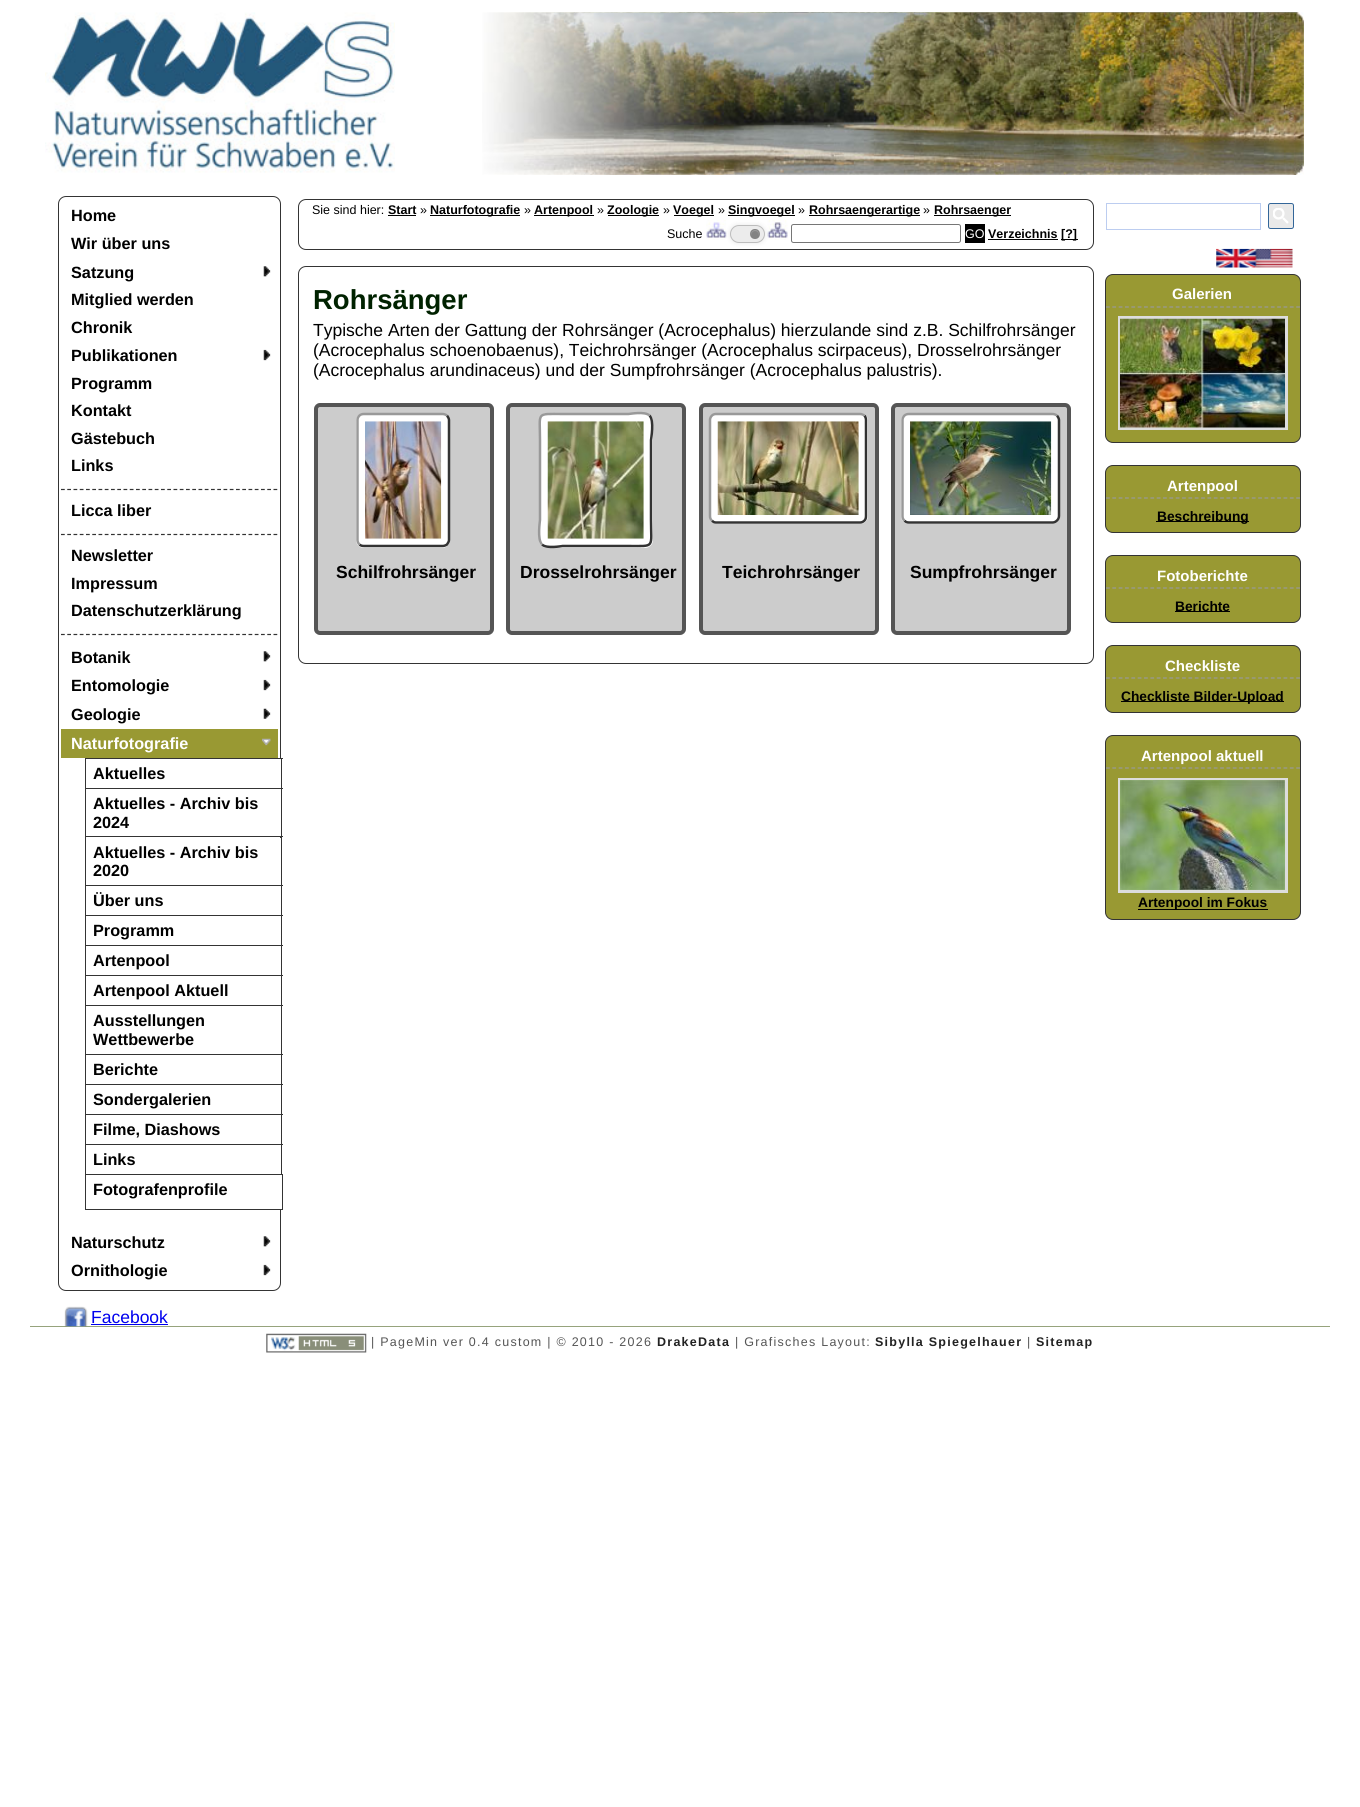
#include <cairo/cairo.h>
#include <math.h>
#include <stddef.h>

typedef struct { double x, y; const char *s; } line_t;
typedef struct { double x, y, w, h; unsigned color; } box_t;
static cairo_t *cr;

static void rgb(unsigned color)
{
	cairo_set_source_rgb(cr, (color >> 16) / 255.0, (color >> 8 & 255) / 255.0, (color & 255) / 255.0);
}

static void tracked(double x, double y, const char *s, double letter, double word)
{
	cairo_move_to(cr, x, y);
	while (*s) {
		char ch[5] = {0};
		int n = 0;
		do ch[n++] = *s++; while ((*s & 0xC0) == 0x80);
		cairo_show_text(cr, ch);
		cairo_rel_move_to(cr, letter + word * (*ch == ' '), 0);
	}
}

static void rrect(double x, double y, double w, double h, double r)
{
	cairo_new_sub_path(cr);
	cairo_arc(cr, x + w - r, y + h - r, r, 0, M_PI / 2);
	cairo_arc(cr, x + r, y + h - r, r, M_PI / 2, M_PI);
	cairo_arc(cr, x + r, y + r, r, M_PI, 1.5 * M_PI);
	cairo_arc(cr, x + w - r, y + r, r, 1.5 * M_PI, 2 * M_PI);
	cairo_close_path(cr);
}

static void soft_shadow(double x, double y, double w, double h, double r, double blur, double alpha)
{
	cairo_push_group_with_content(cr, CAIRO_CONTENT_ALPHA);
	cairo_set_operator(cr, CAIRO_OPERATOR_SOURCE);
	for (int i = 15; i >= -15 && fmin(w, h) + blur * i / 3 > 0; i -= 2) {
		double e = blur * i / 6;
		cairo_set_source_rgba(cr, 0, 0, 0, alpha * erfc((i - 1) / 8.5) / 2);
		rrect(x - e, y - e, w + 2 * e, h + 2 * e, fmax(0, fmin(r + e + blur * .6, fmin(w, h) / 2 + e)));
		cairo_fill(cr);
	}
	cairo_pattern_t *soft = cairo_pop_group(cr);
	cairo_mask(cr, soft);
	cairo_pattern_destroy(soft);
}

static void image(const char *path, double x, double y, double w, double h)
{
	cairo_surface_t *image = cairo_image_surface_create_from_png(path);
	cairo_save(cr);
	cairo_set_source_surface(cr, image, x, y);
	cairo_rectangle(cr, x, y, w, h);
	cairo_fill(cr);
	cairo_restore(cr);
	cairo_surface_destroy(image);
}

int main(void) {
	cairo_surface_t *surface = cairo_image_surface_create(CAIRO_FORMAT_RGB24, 1360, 1807);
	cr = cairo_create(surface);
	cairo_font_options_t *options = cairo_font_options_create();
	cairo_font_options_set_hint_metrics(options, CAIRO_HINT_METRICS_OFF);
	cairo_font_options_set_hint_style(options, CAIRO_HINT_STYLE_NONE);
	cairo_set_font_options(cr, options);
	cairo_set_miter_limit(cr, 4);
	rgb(0xffffff);
	cairo_paint(cr);
	image("img/1.png", 45, 12, 350, 161);
	image("img/2.png", 483, 12, 821, 163);
	image("img/3.png", 482, 12, 822, 163);
	rrect(58.5, 196.5, 222, 1094, 7.5);
	rgb(0x343434);
	cairo_set_line_width(cr, 1);
	cairo_stroke(cr);
	image("img/4.png", 263, 266, 8, 11);
	image("img/5.png", 263, 349, 8, 12);
	cairo_new_path(cr);
	cairo_move_to(cr, 61, 489.5);
	cairo_line_to(cr, 277.5, 489.5);
	rgb(0x333333);
	cairo_set_line_width(cr, 1.2);
	cairo_set_dash(cr, (double[]){3.75, 2.5}, 2, 0);
	cairo_stroke(cr);
	cairo_new_path(cr);
	cairo_move_to(cr, 61, 534.5);
	cairo_line_to(cr, 277.5, 534.5);
	cairo_stroke(cr);
	cairo_new_path(cr);
	cairo_move_to(cr, 61, 634.5);
	cairo_line_to(cr, 277.5, 634.5);
	cairo_stroke(cr);
	image("img/4.png", 263, 651, 8, 11);
	image("img/5.png", 263, 679, 8, 12);
	image("img/6.png", 263, 708, 8, 11);
	rgb(0x999933);
	cairo_rectangle(cr, 61, 729, 217, 29);
	cairo_fill(cr);
	image("img/7.png", 262, 738, 9, 8);
	{
		static const box_t items[] = {
			{280, 759, 1, 29, 0xffffff},
			{85, 758, 198, 1, 0x343434},
			{281, 758, 1, 30, 0x343434},
			{85, 758, 1, 30, 0x343434},
			{280, 789, 1, 47, 0xffffff},
			{85, 788, 198, 1, 0x343434},
			{281, 788, 1, 48, 0x343434},
			{85, 788, 1, 48, 0x343434},
			{280, 838, 1, 47, 0xffffff},
			{85, 836, 198, 1, 0x343434},
			{281, 836, 1, 49, 0x343434},
			{85, 836, 1, 49, 0x343434},
			{280, 886, 1, 29, 0xffffff},
			{85, 885, 198, 1, 0x343434},
			{281, 885, 1, 30, 0x343434},
			{85, 885, 1, 30, 0x343434},
			{280, 916, 1, 29, 0xffffff},
			{85, 915, 198, 1, 0x343434},
			{281, 915, 1, 30, 0x343434},
			{85, 915, 1, 30, 0x343434},
			{280, 946, 1, 29, 0xffffff},
			{85, 945, 198, 1, 0x343434},
			{281, 945, 1, 30, 0x343434},
			{85, 945, 1, 30, 0x343434},
			{280, 976, 1, 29, 0xffffff},
			{85, 975, 198, 1, 0x343434},
			{281, 975, 1, 30, 0x343434},
			{85, 975, 1, 30, 0x343434},
			{280, 1006, 1, 48, 0xffffff},
			{85, 1005, 198, 1, 0x343434},
			{281, 1005, 1, 49, 0x343434},
			{85, 1005, 1, 49, 0x343434},
			{280, 1055, 1, 29, 0xffffff},
			{85, 1054, 198, 1, 0x343434},
			{281, 1054, 1, 30, 0x343434},
			{85, 1054, 1, 30, 0x343434},
			{280, 1085, 1, 29, 0xffffff},
			{85, 1084, 198, 1, 0x343434},
			{281, 1084, 1, 30, 0x343434},
			{85, 1084, 1, 30, 0x343434},
			{280, 1115, 1, 29, 0xffffff},
			{85, 1114, 198, 1, 0x343434},
			{281, 1114, 1, 30, 0x343434},
			{85, 1114, 1, 30, 0x343434},
			{280, 1145, 1, 29, 0xffffff},
			{85, 1144, 198, 1, 0x343434},
			{281, 1144, 1, 30, 0x343434},
			{85, 1144, 1, 30, 0x343434},
			{280, 1175, 1, 34, 0xffffff},
		};
		for (size_t i = 0; i < sizeof items / sizeof *items; i++) {
			rgb(items[i].color);
			cairo_rectangle(cr, items[i].x, items[i].y, items[i].w, items[i].h);
			cairo_fill(cr);
		}
	}
	cairo_rectangle(cr, 85.5, 1174.5, 197, 35);
	rgb(0x343434);
	cairo_set_line_width(cr, 1);
	cairo_set_dash(cr, NULL, 0, 0);
	cairo_stroke(cr);
	image("img/4.png", 263, 1236, 8, 11);
	image("img/5.png", 263, 1264, 8, 12);
	rgb(0x96a37c);
	cairo_rectangle(cr, 30, 1326, 1300, 1);
	cairo_fill(cr);
	image("img/8.png", 64, 1306, 24, 21);
	rgb(0x0000ee);
	cairo_rectangle(cr, 91, 1324, 77, 1);
	cairo_fill(cr);
	rrect(298.5, 199.5, 795, 50, 7.5);
	rgb(0x343434);
	cairo_stroke(cr);
	{
		static const box_t items[] = {
			{388, 215, 28, 1, 0x000000},
			{430, 215, 90, 1, 0x000000},
			{534, 215, 60, 1, 0x000000},
			{608, 215, 51, 1, 0x000000},
			{674, 215, 40, 1, 0x000000},
			{728, 215, 67, 1, 0x000000},
			{809, 215, 111, 1, 0x000000},
			{934, 215, 77, 1, 0x000000},
		};
		for (size_t i = 0; i < sizeof items / sizeof *items; i++) {
			rgb(items[i].color);
			cairo_rectangle(cr, items[i].x, items[i].y, items[i].w, items[i].h);
			cairo_fill(cr);
		}
	}
	image("img/9.png", 706, 220, 21, 20);
	image("img/10.png", 767, 220, 21, 20);
	rgb(0x000000);
	soft_shadow(730, 225, 35, 18, 9, 2.5, 0.1);
	rgb(0xececec);
	rrect(730, 225, 35, 18, 9);
	cairo_fill(cr);
	rrect(730.5, 225.5, 34, 17, 8.5);
	cairo_set_source_rgba(cr, 0, 0, 0, 0.2);
	cairo_stroke(cr);
	rgb(0xbbbbbb);
	cairo_arc(cr, 755, 234, 5, 0, 2 * M_PI);
	cairo_fill(cr);
	rgb(0xdddddd);
	cairo_new_path(cr);
	cairo_move_to(cr, 755, 231);
	cairo_curve_to(cr, 757.5, 231, 759, 233.5, 758.5, 235.5);
	cairo_curve_to(cr, 759, 234.5, 759, 233.5, 758.5, 232.5);
	cairo_curve_to(cr, 756.5, 227.5, 749.5, 231, 751.5, 235.5);
	cairo_curve_to(cr, 751, 233.5, 752.5, 231, 755, 231);
	cairo_close_path(cr);
	cairo_fill(cr);
	cairo_set_source_rgba(cr, 0, 0, 0, 0.3);
	cairo_new_path(cr);
	cairo_move_to(cr, 755, 229);
	cairo_curve_to(cr, 761.5, 229, 761.5, 239, 755, 239);
	cairo_curve_to(cr, 748.5, 239, 748.5, 229, 755, 229);
	cairo_close_path(cr);
	cairo_fill(cr);
	rrect(791.5, 224.5, 169, 18, 2);
	rgb(0x767676);
	cairo_stroke(cr);
	{
		static const box_t items[] = {
			{965, 224, 20, 19, 0x000000},
			{988, 239, 70, 1, 0x000000},
			{1061, 239, 17, 1, 0x000000},
		};
		for (size_t i = 0; i < sizeof items / sizeof *items; i++) {
			rgb(items[i].color);
			cairo_rectangle(cr, items[i].x, items[i].y, items[i].w, items[i].h);
			cairo_fill(cr);
		}
	}
	rrect(298.5, 266.5, 795, 397, 7.5);
	rgb(0x343434);
	cairo_stroke(cr);
	rgb(0xcccccc);
	rrect(316, 405, 176, 228, 4);
	cairo_fill_preserve(cr);
	rgb(0x555555);
	cairo_set_line_width(cr, 4);
	cairo_stroke(cr);
	rgb(0xffffff);
	rrect(356, 413, 94, 135, 8);
	cairo_fill(cr);
	cairo_new_path(cr);
	cairo_move_to(cr, 447, 415.5);
	cairo_curve_to(cr, 448, 417, 449, 418.5, 449, 420);
	cairo_line_to(cr, 449, 540);
	cairo_curve_to(cr, 449, 541.5, 448, 543, 447, 544.5);
	cairo_curve_to(cr, 445.5, 545.5, 444, 546, 442.5, 546);
	cairo_line_to(cr, 364, 546);
	cairo_curve_to(cr, 362, 546, 360.5, 545.5, 359.5, 544.5);
	rgb(0x333333);
	cairo_set_line_width(cr, 2.5);
	cairo_stroke(cr);
	cairo_new_path(cr);
	cairo_move_to(cr, 359.5, 544.5);
	cairo_curve_to(cr, 358, 543, 357.5, 541.5, 357.5, 540);
	cairo_line_to(cr, 357.5, 420);
	cairo_curve_to(cr, 357.5, 418.5, 358, 417, 359.5, 415.5);
	cairo_curve_to(cr, 360.5, 414.5, 362, 414, 364, 414);
	cairo_line_to(cr, 442.5, 414);
	cairo_curve_to(cr, 444, 414, 445.5, 414.5, 447, 415.5);
	rgb(0x999999);
	cairo_stroke(cr);
	image("img/11.png", 365, 421, 77, 118);
	rgb(0xcccccc);
	rrect(508, 405, 176, 228, 4);
	cairo_fill_preserve(cr);
	rgb(0x555555);
	cairo_set_line_width(cr, 4);
	cairo_stroke(cr);
	rgb(0xffffff);
	rrect(539, 413, 114, 135, 8);
	cairo_fill(cr);
	cairo_new_path(cr);
	cairo_move_to(cr, 649.5, 415.5);
	cairo_curve_to(cr, 654.5, 420.5, 651, 439, 651, 440);
	cairo_line_to(cr, 651, 520);
	cairo_curve_to(cr, 651, 548.5, 655.5, 546, 628.5, 546);
	cairo_line_to(cr, 562.5, 546);
	cairo_curve_to(cr, 562, 546, 546.5, 549, 542, 544.5);
	rgb(0x333333);
	cairo_set_line_width(cr, 2.5);
	cairo_stroke(cr);
	cairo_new_path(cr);
	cairo_move_to(cr, 542, 544.5);
	cairo_curve_to(cr, 537, 539.5, 540, 521, 540, 520);
	cairo_line_to(cr, 540, 440);
	cairo_curve_to(cr, 540, 411.5, 535.5, 414, 562.5, 414);
	cairo_line_to(cr, 628.5, 414);
	cairo_curve_to(cr, 629.5, 414, 645, 411, 649.5, 415.5);
	rgb(0x999999);
	cairo_stroke(cr);
	image("img/12.png", 547, 421, 97, 118);
	rgb(0xcccccc);
	rrect(701, 405, 176, 228, 4);
	cairo_fill_preserve(cr);
	rgb(0x555555);
	cairo_set_line_width(cr, 4);
	cairo_stroke(cr);
	rgb(0xffffff);
	rrect(709, 413, 159, 111, 8);
	cairo_fill(cr);
	cairo_new_path(cr);
	cairo_move_to(cr, 864.5, 415.5);
	cairo_curve_to(cr, 865.5, 417, 866, 418.5, 866, 420);
	cairo_line_to(cr, 866, 516);
	cairo_curve_to(cr, 866, 518, 865.5, 519.5, 864.5, 520.5);
	cairo_curve_to(cr, 863, 522, 861.5, 522.5, 860, 522.5);
	cairo_line_to(cr, 716, 522.5);
	cairo_curve_to(cr, 714.5, 522.5, 713, 522, 712, 520.5);
	rgb(0x333333);
	cairo_set_line_width(cr, 2.5);
	cairo_stroke(cr);
	cairo_new_path(cr);
	cairo_move_to(cr, 712, 520.5);
	cairo_curve_to(cr, 710.5, 519.5, 710, 518, 710, 516);
	cairo_line_to(cr, 710, 420);
	cairo_curve_to(cr, 710, 418.5, 710.5, 417, 712, 415.5);
	cairo_curve_to(cr, 713, 414.5, 714.5, 414, 716, 414);
	cairo_line_to(cr, 860, 414);
	cairo_curve_to(cr, 861.5, 414, 863, 414.5, 864.5, 415.5);
	rgb(0x999999);
	cairo_stroke(cr);
	image("img/13.png", 717, 421, 142, 94);
	rgb(0xcccccc);
	rrect(893, 405, 176, 228, 4);
	cairo_fill_preserve(cr);
	rgb(0x555555);
	cairo_set_line_width(cr, 4);
	cairo_stroke(cr);
	rgb(0xffffff);
	rrect(901, 413, 159, 111, 8);
	cairo_fill(cr);
	cairo_new_path(cr);
	cairo_move_to(cr, 1057, 415.5);
	cairo_curve_to(cr, 1058, 417, 1059, 418.5, 1059, 420);
	cairo_line_to(cr, 1059, 516);
	cairo_curve_to(cr, 1059, 518, 1058, 519.5, 1057, 520.5);
	cairo_curve_to(cr, 1055.5, 522, 1054, 522.5, 1052.5, 522.5);
	cairo_line_to(cr, 909, 522.5);
	cairo_curve_to(cr, 907, 522.5, 905.5, 522, 904.5, 520.5);
	rgb(0x333333);
	cairo_set_line_width(cr, 2.5);
	cairo_stroke(cr);
	cairo_new_path(cr);
	cairo_move_to(cr, 904.5, 520.5);
	cairo_curve_to(cr, 903, 519.5, 902.5, 518, 902.5, 516);
	cairo_line_to(cr, 902.5, 420);
	cairo_curve_to(cr, 902.5, 418.5, 903, 417, 904.5, 415.5);
	cairo_curve_to(cr, 905.5, 414.5, 907, 414, 909, 414);
	cairo_line_to(cr, 1052.5, 414);
	cairo_curve_to(cr, 1054, 414, 1055.5, 414.5, 1057, 415.5);
	rgb(0x999999);
	cairo_stroke(cr);
	image("img/14.png", 910, 421, 142, 94);
	cairo_rectangle(cr, 1106.5, 203.5, 154, 26);
	rgb(0xbccdf0);
	cairo_set_line_width(cr, 1);
	cairo_stroke(cr);
	rgb(0xe9e9e9);
	rrect(1268.5, 203.5, 25, 25, 2);
	cairo_fill_preserve(cr);
	rgb(0x336699);
	cairo_stroke(cr);
	image("img/15.png", 1273, 208, 16, 16);
	image("img/16.png", 1216, 248, 77, 20);
	rgb(0x999933);
	rrect(1105.5, 274.5, 195, 168, 7.5);
	cairo_fill_preserve(cr);
	rgb(0x333333);
	cairo_stroke(cr);
	cairo_new_path(cr);
	cairo_move_to(cr, 1106, 307);
	cairo_line_to(cr, 1300, 307);
	rgb(0x999999);
	cairo_set_line_width(cr, 1.2);
	cairo_set_dash(cr, (double[]){3.75, 2.59}, 2, 0);
	cairo_stroke(cr);
	rgb(0xdddddd);
	cairo_rectangle(cr, 1118, 316, 170, 114);
	cairo_fill(cr);
	image("img/17.png", 1120, 318, 165, 110);
	rgb(0x999933);
	rrect(1105.5, 465.5, 195, 67, 7.5);
	cairo_fill_preserve(cr);
	rgb(0x333333);
	cairo_set_line_width(cr, 1);
	cairo_set_dash(cr, NULL, 0, 0);
	cairo_stroke(cr);
	cairo_new_path(cr);
	cairo_move_to(cr, 1106, 498);
	cairo_line_to(cr, 1300, 498);
	rgb(0x999999);
	cairo_set_line_width(cr, 1.2);
	cairo_set_dash(cr, (double[]){3.75, 2.59}, 2, 0);
	cairo_stroke(cr);
	rgb(0x000000);
	cairo_rectangle(cr, 1156, 521, 93, 1);
	cairo_fill(cr);
	rgb(0x999933);
	rrect(1105.5, 555.5, 195, 67, 7.5);
	cairo_fill_preserve(cr);
	rgb(0x333333);
	cairo_set_line_width(cr, 1);
	cairo_set_dash(cr, NULL, 0, 0);
	cairo_stroke(cr);
	cairo_new_path(cr);
	cairo_move_to(cr, 1106, 588);
	cairo_line_to(cr, 1300, 588);
	rgb(0x999999);
	cairo_set_line_width(cr, 1.2);
	cairo_set_dash(cr, (double[]){3.75, 2.59}, 2, 0);
	cairo_stroke(cr);
	rgb(0x000000);
	cairo_rectangle(cr, 1175, 611, 55, 1);
	cairo_fill(cr);
	rgb(0x999933);
	rrect(1105.5, 645.5, 195, 67, 7.5);
	cairo_fill_preserve(cr);
	rgb(0x333333);
	cairo_set_line_width(cr, 1);
	cairo_set_dash(cr, NULL, 0, 0);
	cairo_stroke(cr);
	cairo_new_path(cr);
	cairo_move_to(cr, 1106, 678);
	cairo_line_to(cr, 1300, 678);
	rgb(0x999999);
	cairo_set_line_width(cr, 1.2);
	cairo_set_dash(cr, (double[]){3.75, 2.59}, 2, 0);
	cairo_stroke(cr);
	rgb(0x000000);
	cairo_rectangle(cr, 1121, 701, 163, 1);
	cairo_fill(cr);
	rgb(0x999933);
	rrect(1105.5, 735.5, 195, 184, 7.5);
	cairo_fill_preserve(cr);
	rgb(0x333333);
	cairo_set_line_width(cr, 1);
	cairo_set_dash(cr, NULL, 0, 0);
	cairo_stroke(cr);
	cairo_new_path(cr);
	cairo_move_to(cr, 1106, 768);
	cairo_line_to(cr, 1300, 768);
	rgb(0x999999);
	cairo_set_line_width(cr, 1.2);
	cairo_set_dash(cr, (double[]){3.75, 2.59}, 2, 0);
	cairo_stroke(cr);
	rgb(0xdddddd);
	cairo_rectangle(cr, 1118, 778, 170, 115);
	cairo_fill(cr);
	image("img/18.png", 1120, 780, 165, 110);
	rgb(0x000000);
	cairo_rectangle(cr, 1138, 909, 130, 1);
	cairo_fill(cr);
	image("img/19.png", 266, 1333, 101, 20);
	cairo_select_font_face(cr, "Liberation Sans", CAIRO_FONT_SLANT_NORMAL, CAIRO_FONT_WEIGHT_BOLD);
	cairo_set_font_size(cr, 16.25);
	{
		static const line_t items[] = {
			{71, 221, "Home"},
			{71, 249, "Wir über uns"},
			{71, 278, "Satzung"},
			{71, 305, "Mitglied werden"},
			{71, 333, "Chronik"},
			{71, 361, "Publikationen"},
			{71, 389, "Programm"},
			{71, 416, "Kontakt"},
			{71, 444, "Gästebuch"},
			{71, 471, "Links"},
			{71, 516, "Licca liber"},
			{71, 561, "Newsletter"},
			{71, 589, "Impressum"},
			{71, 616, "Datenschutzerklärung"},
			{71, 663, "Botanik"},
			{71, 691, "Entomologie"},
			{71, 720, "Geologie"},
		};
		for (size_t i = 0; i < sizeof items / sizeof *items; i++) {
			cairo_move_to(cr, items[i].x, items[i].y);
			cairo_show_text(cr, items[i].s);
		}
	}
	rgb(0xffffff);
	cairo_move_to(cr, 71, 749);
	cairo_show_text(cr, "Naturfotografie");
	rgb(0x000000);
	{
		static const line_t items[] = {
			{93, 779, "Aktuelles"},
			{93, 809, "Aktuelles - Archiv bis"},
			{93, 828, "2024"},
			{93, 858, "Aktuelles - Archiv bis"},
			{93, 876, "2020"},
			{93, 906, "Über uns"},
			{93, 936, "Programm"},
			{93, 966, "Artenpool"},
			{93, 996, "Artenpool Aktuell"},
			{93, 1026, "Ausstellungen"},
			{93, 1045, "Wettbewerbe"},
			{93, 1075, "Berichte"},
			{93, 1105, "Sondergalerien"},
			{93, 1135, "Filme, Diashows"},
			{93, 1165, "Links"},
			{93, 1195, "Fotografenprofile"},
			{71, 1248, "Naturschutz"},
			{71, 1276, "Ornithologie"},
		};
		for (size_t i = 0; i < sizeof items / sizeof *items; i++) {
			cairo_move_to(cr, items[i].x, items[i].y);
			cairo_show_text(cr, items[i].s);
		}
	}
	cairo_select_font_face(cr, "Liberation Sans", CAIRO_FONT_SLANT_NORMAL, CAIRO_FONT_WEIGHT_NORMAL);
	cairo_set_font_size(cr, 17.5);
	rgb(0x0000ee);
	cairo_move_to(cr, 91, 1323);
	cairo_show_text(cr, "Facebook");
	cairo_set_font_size(cr, 12.5);
	rgb(0x000000);
	cairo_move_to(cr, 312, 214);
	cairo_show_text(cr, "Sie sind hier:");
	cairo_select_font_face(cr, "Liberation Sans", CAIRO_FONT_SLANT_NORMAL, CAIRO_FONT_WEIGHT_BOLD);
	cairo_move_to(cr, 388, 214);
	cairo_show_text(cr, "Start");
	cairo_select_font_face(cr, "Liberation Sans", CAIRO_FONT_SLANT_NORMAL, CAIRO_FONT_WEIGHT_NORMAL);
	cairo_move_to(cr, 420, 214);
	cairo_show_text(cr, "»");
	cairo_select_font_face(cr, "Liberation Sans", CAIRO_FONT_SLANT_NORMAL, CAIRO_FONT_WEIGHT_BOLD);
	cairo_move_to(cr, 430, 214);
	cairo_show_text(cr, "Naturfotografie");
	cairo_select_font_face(cr, "Liberation Sans", CAIRO_FONT_SLANT_NORMAL, CAIRO_FONT_WEIGHT_NORMAL);
	cairo_move_to(cr, 524, 214);
	cairo_show_text(cr, "»");
	cairo_select_font_face(cr, "Liberation Sans", CAIRO_FONT_SLANT_NORMAL, CAIRO_FONT_WEIGHT_BOLD);
	cairo_move_to(cr, 534, 214);
	cairo_show_text(cr, "Artenpool");
	cairo_select_font_face(cr, "Liberation Sans", CAIRO_FONT_SLANT_NORMAL, CAIRO_FONT_WEIGHT_NORMAL);
	cairo_move_to(cr, 597, 214);
	cairo_show_text(cr, "»");
	cairo_select_font_face(cr, "Liberation Sans", CAIRO_FONT_SLANT_NORMAL, CAIRO_FONT_WEIGHT_BOLD);
	cairo_move_to(cr, 607, 214);
	cairo_show_text(cr, "Zoologie");
	cairo_select_font_face(cr, "Liberation Sans", CAIRO_FONT_SLANT_NORMAL, CAIRO_FONT_WEIGHT_NORMAL);
	cairo_move_to(cr, 663, 214);
	cairo_show_text(cr, "»");
	cairo_select_font_face(cr, "Liberation Sans", CAIRO_FONT_SLANT_NORMAL, CAIRO_FONT_WEIGHT_BOLD);
	cairo_move_to(cr, 673, 214);
	cairo_show_text(cr, "Voegel");
	cairo_select_font_face(cr, "Liberation Sans", CAIRO_FONT_SLANT_NORMAL, CAIRO_FONT_WEIGHT_NORMAL);
	cairo_move_to(cr, 718, 214);
	cairo_show_text(cr, "»");
	cairo_select_font_face(cr, "Liberation Sans", CAIRO_FONT_SLANT_NORMAL, CAIRO_FONT_WEIGHT_BOLD);
	cairo_move_to(cr, 728, 214);
	cairo_show_text(cr, "Singvoegel");
	cairo_select_font_face(cr, "Liberation Sans", CAIRO_FONT_SLANT_NORMAL, CAIRO_FONT_WEIGHT_NORMAL);
	cairo_move_to(cr, 798, 214);
	cairo_show_text(cr, "»");
	cairo_select_font_face(cr, "Liberation Sans", CAIRO_FONT_SLANT_NORMAL, CAIRO_FONT_WEIGHT_BOLD);
	cairo_move_to(cr, 809, 214);
	cairo_show_text(cr, "Rohrsaengerartige");
	cairo_select_font_face(cr, "Liberation Sans", CAIRO_FONT_SLANT_NORMAL, CAIRO_FONT_WEIGHT_NORMAL);
	cairo_move_to(cr, 923, 214);
	cairo_show_text(cr, "»");
	cairo_select_font_face(cr, "Liberation Sans", CAIRO_FONT_SLANT_NORMAL, CAIRO_FONT_WEIGHT_BOLD);
	cairo_move_to(cr, 934, 214);
	cairo_show_text(cr, "Rohrsaenger");
	cairo_select_font_face(cr, "Liberation Sans", CAIRO_FONT_SLANT_NORMAL, CAIRO_FONT_WEIGHT_NORMAL);
	cairo_move_to(cr, 667, 238);
	cairo_show_text(cr, "Suche");
	rgb(0xffffff);
	cairo_move_to(cr, 965, 238);
	cairo_show_text(cr, "GO");
	cairo_select_font_face(cr, "Liberation Sans", CAIRO_FONT_SLANT_NORMAL, CAIRO_FONT_WEIGHT_BOLD);
	rgb(0x000000);
	cairo_move_to(cr, 988, 238);
	cairo_show_text(cr, "Verzeichnis");
	cairo_move_to(cr, 1061, 238);
	cairo_show_text(cr, "[?]");
	cairo_set_font_size(cr, 27.5);
	rgb(0x002200);
	cairo_move_to(cr, 313, 309);
	cairo_show_text(cr, "Rohrsänger");
	cairo_select_font_face(cr, "Liberation Sans", CAIRO_FONT_SLANT_NORMAL, CAIRO_FONT_WEIGHT_NORMAL);
	cairo_set_font_size(cr, 17.5);
	rgb(0x000000);
	{
		static const line_t items[] = {
			{313, 336, "Typische Arten der Gattung der Rohrsänger (Acrocephalus) hierzulande sind z.B. Schilfrohrsänger"},
			{313, 356, "(Acrocephalus schoenobaenus), Teichrohrsänger (Acrocephalus scirpaceus), Drosselrohrsänger"},
			{313, 376, "(Acrocephalus arundinaceus) und der Sumpfrohrsänger (Acrocephalus palustris)."},
		};
		for (size_t i = 0; i < sizeof items / sizeof *items; i++) {
			cairo_move_to(cr, items[i].x, items[i].y);
			cairo_show_text(cr, items[i].s);
		}
	}
	cairo_select_font_face(cr, "Liberation Sans", CAIRO_FONT_SLANT_NORMAL, CAIRO_FONT_WEIGHT_BOLD);
	{
		static const line_t items[] = {
			{336, 578, "Schilfrohrsänger"},
			{520, 578, "Drosselrohrsänger"},
			{722, 578, "Teichrohrsänger"},
			{910, 578, "Sumpfrohrsänger"},
		};
		for (size_t i = 0; i < sizeof items / sizeof *items; i++) {
			cairo_move_to(cr, items[i].x, items[i].y);
			cairo_show_text(cr, items[i].s);
		}
	}
	cairo_set_font_size(cr, 15);
	rgb(0xffffff);
	cairo_move_to(cr, 1172, 299);
	cairo_show_text(cr, "Galerien");
	cairo_move_to(cr, 1167, 491);
	cairo_show_text(cr, "Artenpool");
	cairo_set_font_size(cr, 13.75);
	rgb(0x000000);
	cairo_move_to(cr, 1157, 521);
	cairo_show_text(cr, "Beschreibung");
	cairo_set_font_size(cr, 15);
	rgb(0xffffff);
	cairo_move_to(cr, 1157, 581);
	cairo_show_text(cr, "Fotoberichte");
	cairo_set_font_size(cr, 13.75);
	rgb(0x000000);
	cairo_move_to(cr, 1175, 611);
	cairo_show_text(cr, "Berichte");
	cairo_set_font_size(cr, 15);
	rgb(0xffffff);
	cairo_move_to(cr, 1165, 671);
	cairo_show_text(cr, "Checkliste");
	cairo_set_font_size(cr, 13.75);
	rgb(0x000000);
	cairo_move_to(cr, 1121, 701);
	cairo_show_text(cr, "Checkliste Bilder-Upload");
	cairo_set_font_size(cr, 15);
	rgb(0xffffff);
	cairo_move_to(cr, 1141, 761);
	cairo_show_text(cr, "Artenpool aktuell");
	cairo_set_font_size(cr, 13.75);
	rgb(0x000000);
	cairo_move_to(cr, 1138, 907);
	cairo_show_text(cr, "Artenpool im Fokus");
	cairo_select_font_face(cr, "Liberation Sans", CAIRO_FONT_SLANT_NORMAL, CAIRO_FONT_WEIGHT_NORMAL);
	cairo_set_font_size(cr, 12.5);
	rgb(0x555555);
	tracked(371, 1346, "| PageMin ver 0.4 custom | © 2010 - 2026", 1.25, 0);
	cairo_select_font_face(cr, "Liberation Sans", CAIRO_FONT_SLANT_NORMAL, CAIRO_FONT_WEIGHT_BOLD);
	rgb(0x222222);
	tracked(657, 1346, "DrakeData", 1.25, 0);
	cairo_select_font_face(cr, "Liberation Sans", CAIRO_FONT_SLANT_NORMAL, CAIRO_FONT_WEIGHT_NORMAL);
	rgb(0x555555);
	tracked(735, 1346, "| Grafisches Layout:", 1.25, 0);
	cairo_select_font_face(cr, "Liberation Sans", CAIRO_FONT_SLANT_NORMAL, CAIRO_FONT_WEIGHT_BOLD);
	rgb(0x222222);
	tracked(875, 1346, "Sibylla Spiegelhauer", 1.25, 0);
	cairo_select_font_face(cr, "Liberation Sans", CAIRO_FONT_SLANT_NORMAL, CAIRO_FONT_WEIGHT_NORMAL);
	rgb(0x555555);
	tracked(1027, 1346, "|", 1.25, 0);
	cairo_select_font_face(cr, "Liberation Sans", CAIRO_FONT_SLANT_NORMAL, CAIRO_FONT_WEIGHT_BOLD);
	rgb(0x222222);
	tracked(1036, 1346, "Sitemap", 1.25, 0);
	cairo_surface_write_to_png(surface, "page.png");
	cairo_font_options_destroy(options);
	cairo_destroy(cr);
	cairo_surface_destroy(surface);
	return 0;
}
